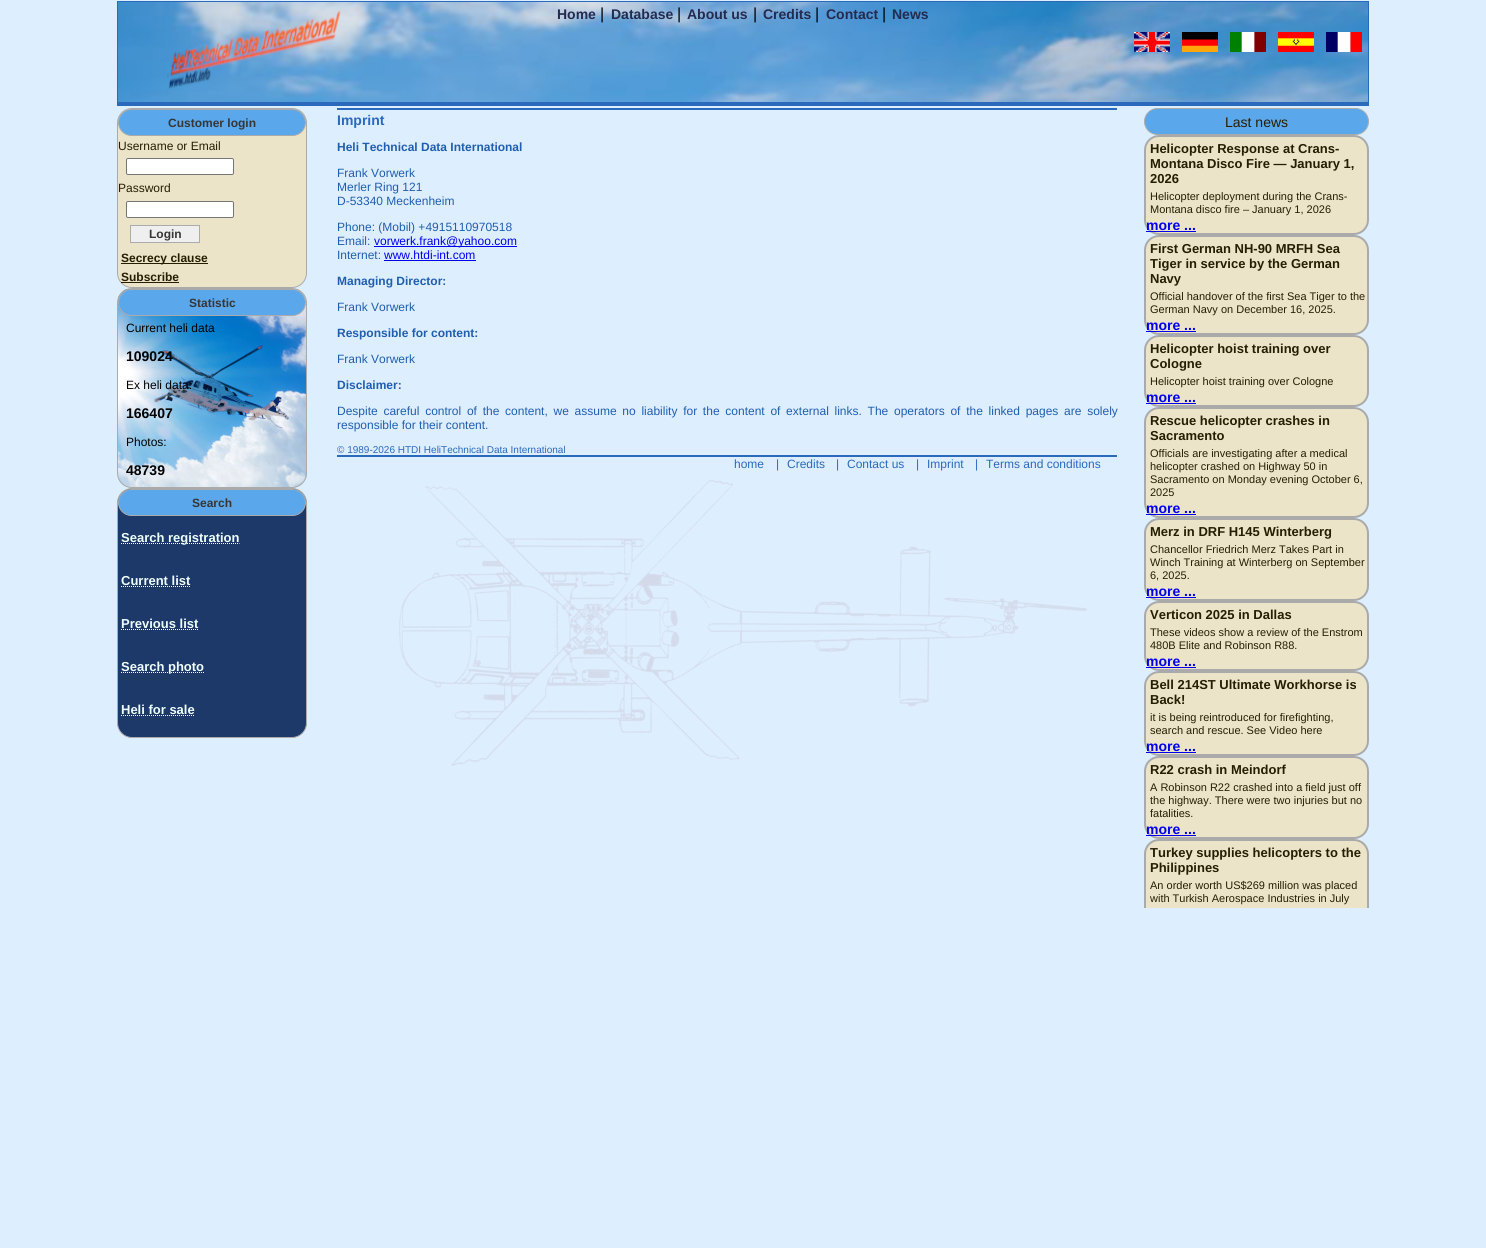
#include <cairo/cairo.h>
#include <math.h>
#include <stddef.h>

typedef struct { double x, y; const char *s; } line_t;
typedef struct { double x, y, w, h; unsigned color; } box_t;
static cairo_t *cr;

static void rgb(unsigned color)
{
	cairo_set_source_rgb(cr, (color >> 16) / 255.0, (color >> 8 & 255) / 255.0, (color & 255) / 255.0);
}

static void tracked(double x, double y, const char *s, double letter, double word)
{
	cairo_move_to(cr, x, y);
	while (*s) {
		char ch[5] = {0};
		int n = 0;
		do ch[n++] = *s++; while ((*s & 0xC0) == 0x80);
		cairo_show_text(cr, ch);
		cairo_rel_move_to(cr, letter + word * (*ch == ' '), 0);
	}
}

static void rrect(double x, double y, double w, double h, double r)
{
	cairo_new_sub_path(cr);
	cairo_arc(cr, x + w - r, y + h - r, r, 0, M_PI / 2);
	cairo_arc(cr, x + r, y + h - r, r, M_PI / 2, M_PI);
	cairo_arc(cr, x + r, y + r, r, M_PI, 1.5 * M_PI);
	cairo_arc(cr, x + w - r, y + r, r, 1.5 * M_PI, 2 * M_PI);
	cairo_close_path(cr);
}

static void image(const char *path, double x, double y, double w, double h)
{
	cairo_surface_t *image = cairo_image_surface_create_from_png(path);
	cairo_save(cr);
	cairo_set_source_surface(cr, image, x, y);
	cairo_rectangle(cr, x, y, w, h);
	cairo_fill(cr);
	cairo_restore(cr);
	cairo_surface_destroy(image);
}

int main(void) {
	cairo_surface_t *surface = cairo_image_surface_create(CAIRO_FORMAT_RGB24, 1486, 1248);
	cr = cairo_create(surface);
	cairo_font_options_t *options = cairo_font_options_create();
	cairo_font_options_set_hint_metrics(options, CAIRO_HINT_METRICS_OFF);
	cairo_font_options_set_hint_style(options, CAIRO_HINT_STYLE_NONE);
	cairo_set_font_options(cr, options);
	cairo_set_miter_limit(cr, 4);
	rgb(0xddeeff);
	cairo_paint(cr);
	image("img/1.png", 399, 480, 688, 286);
	image("img/2.png", 118, 2, 1250, 100);
	{
		static const box_t items[] = {
			{117, 1, 1252, 1, 0x2b69bc},
			{1368, 1, 1, 105, 0x2b69bc},
			{117, 102, 1252, 4, 0x2b69bc},
			{117, 1, 1, 105, 0x2b69bc},
		};
		for (size_t i = 0; i < sizeof items / sizeof *items; i++) {
			rgb(items[i].color);
			cairo_rectangle(cr, items[i].x, items[i].y, items[i].w, items[i].h);
			cairo_fill(cr);
		}
	}
	image("img/3.png", 1134, 32, 36, 20);
	image("img/4.png", 1182, 32, 36, 20);
	image("img/5.png", 1230, 32, 36, 20);
	image("img/6.png", 1278, 32, 36, 20);
	image("img/7.png", 1326, 32, 36, 20);
	rgb(0xebe4c9);
	rrect(117.5, 108.5, 189, 179, 14.5);
	cairo_fill_preserve(cr);
	rgb(0xaaaaaa);
	cairo_set_line_width(cr, 1);
	cairo_stroke(cr);
	rgb(0x5aa8eb);
	rrect(118.5, 109.5, 187, 26, 13);
	cairo_fill_preserve(cr);
	rgb(0xaaaaaa);
	cairo_stroke(cr);
	rgb(0xffffff);
	rrect(126.5, 158.5, 107, 16, 1.5);
	cairo_fill_preserve(cr);
	rgb(0x767676);
	cairo_stroke(cr);
	rgb(0xffffff);
	rrect(126.5, 201.5, 107, 16, 1.5);
	cairo_fill_preserve(cr);
	rgb(0x767676);
	cairo_stroke(cr);
	rgb(0xefefef);
	cairo_rectangle(cr, 130.5, 225.5, 69, 17);
	cairo_fill_preserve(cr);
	rgb(0xababab);
	cairo_stroke(cr);
	rgb(0x271e02);
	cairo_rectangle(cr, 121, 263, 87, 1);
	cairo_fill(cr);
	cairo_rectangle(cr, 121, 282, 58, 1);
	cairo_fill(cr);
	image("img/8.png", 118, 289, 189, 199);
	rrect(117.5, 288.5, 189, 199, 14.5);
	rgb(0xaaaaaa);
	cairo_stroke(cr);
	rgb(0x5aa8eb);
	rrect(118.5, 289.5, 187, 26, 13);
	cairo_fill_preserve(cr);
	rgb(0xaaaaaa);
	cairo_stroke(cr);
	rgb(0x1c396a);
	rrect(117.5, 488.5, 189, 249, 14.5);
	cairo_fill_preserve(cr);
	rgb(0xaaaaaa);
	cairo_stroke(cr);
	rgb(0x5aa8eb);
	rrect(118.5, 489.5, 187, 26, 13);
	cairo_fill_preserve(cr);
	rgb(0xaaaaaa);
	cairo_stroke(cr);
	cairo_new_path(cr);
	cairo_move_to(cr, 121, 543.5);
	cairo_line_to(cr, 239.5, 543.5);
	rgb(0xeffffd);
	cairo_set_dash(cr, (double[]){1, 1}, 2, 0);
	cairo_stroke(cr);
	cairo_new_path(cr);
	cairo_move_to(cr, 121, 586.5);
	cairo_line_to(cr, 190.5, 586.5);
	cairo_stroke(cr);
	cairo_new_path(cr);
	cairo_move_to(cr, 121, 629.5);
	cairo_line_to(cr, 198.5, 629.5);
	cairo_stroke(cr);
	cairo_new_path(cr);
	cairo_move_to(cr, 121, 672.5);
	cairo_line_to(cr, 204, 672.5);
	cairo_stroke(cr);
	cairo_new_path(cr);
	cairo_move_to(cr, 121, 715.5);
	cairo_line_to(cr, 195, 715.5);
	cairo_stroke(cr);
	{
		static const box_t items[] = {
			{337, 108, 780, 2, 0x2b69bc},
			{374, 246, 143, 1, 0x0000ee},
			{384, 260, 92, 1, 0x0000ee},
			{337, 455, 780, 2, 0x2b69bc},
		};
		for (size_t i = 0; i < sizeof items / sizeof *items; i++) {
			rgb(items[i].color);
			cairo_rectangle(cr, items[i].x, items[i].y, items[i].w, items[i].h);
			cairo_fill(cr);
		}
	}
	rgb(0x5aa8eb);
	rrect(1144.5, 108.5, 224, 26, 13);
	cairo_fill_preserve(cr);
	rgb(0xaaaaaa);
	cairo_set_dash(cr, NULL, 0, 0);
	cairo_stroke(cr);
	rgb(0xebe4c9);
	rrect(1145, 136, 223, 98, 14);
	cairo_fill_preserve(cr);
	rgb(0xaaaaaa);
	cairo_set_line_width(cr, 2);
	cairo_stroke(cr);
	rgb(0x0000ee);
	cairo_rectangle(cr, 1146, 231, 50, 1);
	cairo_fill(cr);
	rgb(0xebe4c9);
	rrect(1145, 236, 223, 98, 14);
	cairo_fill_preserve(cr);
	rgb(0xaaaaaa);
	cairo_stroke(cr);
	rgb(0x0000ee);
	cairo_rectangle(cr, 1146, 331, 50, 1);
	cairo_fill(cr);
	rgb(0xebe4c9);
	rrect(1145, 336, 223, 70, 14);
	cairo_fill_preserve(cr);
	rgb(0xaaaaaa);
	cairo_stroke(cr);
	rgb(0x0000ee);
	cairo_rectangle(cr, 1146, 403, 50, 1);
	cairo_fill(cr);
	rgb(0xebe4c9);
	rrect(1145, 408, 223, 109, 14);
	cairo_fill_preserve(cr);
	rgb(0xaaaaaa);
	cairo_stroke(cr);
	rgb(0x0000ee);
	cairo_rectangle(cr, 1146, 514, 50, 1);
	cairo_fill(cr);
	rgb(0xebe4c9);
	rrect(1145, 519, 223, 81, 14);
	cairo_fill_preserve(cr);
	rgb(0xaaaaaa);
	cairo_stroke(cr);
	rgb(0x0000ee);
	cairo_rectangle(cr, 1146, 597, 50, 1);
	cairo_fill(cr);
	rgb(0xebe4c9);
	rrect(1145, 602, 223, 68, 14);
	cairo_fill_preserve(cr);
	rgb(0xaaaaaa);
	cairo_stroke(cr);
	rgb(0x0000ee);
	cairo_rectangle(cr, 1146, 667, 50, 1);
	cairo_fill(cr);
	rgb(0xebe4c9);
	rrect(1145, 672, 223, 83, 14);
	cairo_fill_preserve(cr);
	rgb(0xaaaaaa);
	cairo_stroke(cr);
	rgb(0x0000ee);
	cairo_rectangle(cr, 1146, 752, 50, 1);
	cairo_fill(cr);
	rgb(0xebe4c9);
	rrect(1145, 757, 223, 81, 14);
	cairo_fill_preserve(cr);
	rgb(0xaaaaaa);
	cairo_stroke(cr);
	rgb(0x0000ee);
	cairo_rectangle(cr, 1146, 835, 50, 1);
	cairo_fill(cr);
	rgb(0xebe4c9);
	cairo_new_path(cr);
	cairo_move_to(cr, 1159, 839);
	cairo_line_to(cr, 1354, 839);
	cairo_curve_to(cr, 1362.5, 839, 1369, 845.5, 1369, 854);
	cairo_line_to(cr, 1369, 908);
	cairo_line_to(cr, 1144, 908);
	cairo_line_to(cr, 1144, 854);
	cairo_curve_to(cr, 1144, 845.5, 1150.5, 839, 1159, 839);
	cairo_close_path(cr);
	cairo_fill(cr);
	cairo_save(cr);
	cairo_rectangle(cr, 1144, 108, 225, 800);
	cairo_clip(cr);
	rrect(1145, 840, 223, 212, 14);
	rgb(0xaaaaaa);
	cairo_stroke(cr);
	cairo_restore(cr);
	cairo_select_font_face(cr, "Liberation Sans", CAIRO_FONT_SLANT_NORMAL, CAIRO_FONT_WEIGHT_BOLD);
	cairo_set_font_size(cr, 14);
	rgb(0x242b4f);
	cairo_move_to(cr, 557, 19);
	cairo_show_text(cr, "Home");
	cairo_select_font_face(cr, "Liberation Sans", CAIRO_FONT_SLANT_NORMAL, CAIRO_FONT_WEIGHT_NORMAL);
	cairo_set_font_size(cr, 16);
	rgb(0x000000);
	cairo_move_to(cr, 600, 19);
	cairo_show_text(cr, "|");
	cairo_select_font_face(cr, "Liberation Sans", CAIRO_FONT_SLANT_NORMAL, CAIRO_FONT_WEIGHT_BOLD);
	cairo_set_font_size(cr, 14);
	rgb(0x242b4f);
	cairo_move_to(cr, 611, 19);
	cairo_show_text(cr, "Database");
	cairo_select_font_face(cr, "Liberation Sans", CAIRO_FONT_SLANT_NORMAL, CAIRO_FONT_WEIGHT_NORMAL);
	cairo_set_font_size(cr, 16);
	rgb(0x000000);
	cairo_move_to(cr, 677, 19);
	cairo_show_text(cr, "|");
	cairo_select_font_face(cr, "Liberation Sans", CAIRO_FONT_SLANT_NORMAL, CAIRO_FONT_WEIGHT_BOLD);
	cairo_set_font_size(cr, 14);
	rgb(0x242b4f);
	cairo_move_to(cr, 687, 19);
	cairo_show_text(cr, "About us");
	cairo_select_font_face(cr, "Liberation Sans", CAIRO_FONT_SLANT_NORMAL, CAIRO_FONT_WEIGHT_NORMAL);
	cairo_set_font_size(cr, 16);
	rgb(0x000000);
	cairo_move_to(cr, 753, 19);
	cairo_show_text(cr, "|");
	cairo_select_font_face(cr, "Liberation Sans", CAIRO_FONT_SLANT_NORMAL, CAIRO_FONT_WEIGHT_BOLD);
	cairo_set_font_size(cr, 14);
	rgb(0x242b4f);
	cairo_move_to(cr, 763, 19);
	cairo_show_text(cr, "Credits");
	cairo_select_font_face(cr, "Liberation Sans", CAIRO_FONT_SLANT_NORMAL, CAIRO_FONT_WEIGHT_NORMAL);
	cairo_set_font_size(cr, 16);
	rgb(0x000000);
	cairo_move_to(cr, 815, 19);
	cairo_show_text(cr, "|");
	cairo_select_font_face(cr, "Liberation Sans", CAIRO_FONT_SLANT_NORMAL, CAIRO_FONT_WEIGHT_BOLD);
	cairo_set_font_size(cr, 14);
	rgb(0x242b4f);
	cairo_move_to(cr, 826, 19);
	cairo_show_text(cr, "Contact");
	cairo_select_font_face(cr, "Liberation Sans", CAIRO_FONT_SLANT_NORMAL, CAIRO_FONT_WEIGHT_NORMAL);
	cairo_set_font_size(cr, 16);
	rgb(0x000000);
	cairo_move_to(cr, 882, 19);
	cairo_show_text(cr, "|");
	cairo_select_font_face(cr, "Liberation Sans", CAIRO_FONT_SLANT_NORMAL, CAIRO_FONT_WEIGHT_BOLD);
	cairo_set_font_size(cr, 14);
	rgb(0x242b4f);
	cairo_move_to(cr, 892, 19);
	cairo_show_text(cr, "News");
	cairo_set_font_size(cr, 12);
	rgb(0x363636);
	cairo_move_to(cr, 168, 127);
	cairo_show_text(cr, "Customer login");
	cairo_select_font_face(cr, "Liberation Sans", CAIRO_FONT_SLANT_NORMAL, CAIRO_FONT_WEIGHT_NORMAL);
	rgb(0x271e02);
	cairo_move_to(cr, 118, 150);
	cairo_show_text(cr, "Username or Email");
	cairo_move_to(cr, 118, 192);
	cairo_show_text(cr, "Password");
	cairo_select_font_face(cr, "Liberation Sans", CAIRO_FONT_SLANT_NORMAL, CAIRO_FONT_WEIGHT_BOLD);
	rgb(0x363636);
	cairo_move_to(cr, 149, 238);
	cairo_show_text(cr, "Login");
	rgb(0x271e02);
	cairo_move_to(cr, 121, 262);
	cairo_show_text(cr, "Secrecy clause");
	cairo_move_to(cr, 121, 281);
	cairo_show_text(cr, "Subscribe");
	rgb(0x363636);
	cairo_move_to(cr, 189, 307);
	cairo_show_text(cr, "Statistic");
	cairo_select_font_face(cr, "Liberation Sans", CAIRO_FONT_SLANT_NORMAL, CAIRO_FONT_WEIGHT_NORMAL);
	rgb(0x000000);
	cairo_move_to(cr, 126, 332);
	cairo_show_text(cr, "Current heli data");
	cairo_select_font_face(cr, "Liberation Sans", CAIRO_FONT_SLANT_NORMAL, CAIRO_FONT_WEIGHT_BOLD);
	cairo_set_font_size(cr, 14);
	cairo_move_to(cr, 126, 361);
	cairo_show_text(cr, "109024");
	cairo_select_font_face(cr, "Liberation Sans", CAIRO_FONT_SLANT_NORMAL, CAIRO_FONT_WEIGHT_NORMAL);
	cairo_set_font_size(cr, 12);
	cairo_move_to(cr, 126, 389);
	cairo_show_text(cr, "Ex heli data:");
	cairo_select_font_face(cr, "Liberation Sans", CAIRO_FONT_SLANT_NORMAL, CAIRO_FONT_WEIGHT_BOLD);
	cairo_set_font_size(cr, 14);
	cairo_move_to(cr, 126, 418);
	cairo_show_text(cr, "166407");
	cairo_select_font_face(cr, "Liberation Sans", CAIRO_FONT_SLANT_NORMAL, CAIRO_FONT_WEIGHT_NORMAL);
	cairo_set_font_size(cr, 12);
	cairo_move_to(cr, 126, 446);
	cairo_show_text(cr, "Photos:");
	cairo_select_font_face(cr, "Liberation Sans", CAIRO_FONT_SLANT_NORMAL, CAIRO_FONT_WEIGHT_BOLD);
	cairo_set_font_size(cr, 14);
	cairo_move_to(cr, 126, 475);
	cairo_show_text(cr, "48739");
	cairo_set_font_size(cr, 12);
	rgb(0x363636);
	cairo_move_to(cr, 192, 507);
	cairo_show_text(cr, "Search");
	cairo_set_font_size(cr, 13);
	rgb(0xeffffd);
	{
		static const line_t items[] = {
			{121, 542, "Search registration"},
			{121, 585, "Current list"},
			{121, 628, "Previous list"},
			{121, 671, "Search photo"},
			{121, 714, "Heli for sale"},
		};
		for (size_t i = 0; i < sizeof items / sizeof *items; i++) {
			cairo_move_to(cr, items[i].x, items[i].y);
			cairo_show_text(cr, items[i].s);
		}
	}
	cairo_set_font_size(cr, 14);
	rgb(0x2b69bc);
	cairo_move_to(cr, 337, 125);
	cairo_show_text(cr, "Imprint");
	cairo_set_font_size(cr, 12);
	rgb(0x205eaf);
	cairo_move_to(cr, 337, 151);
	cairo_show_text(cr, "Heli Technical Data International");
	cairo_select_font_face(cr, "Liberation Sans", CAIRO_FONT_SLANT_NORMAL, CAIRO_FONT_WEIGHT_NORMAL);
	{
		static const line_t items[] = {
			{337, 177, "Frank Vorwerk"},
			{337, 191, "Merler Ring 121"},
			{337, 205, "D-53340 Meckenheim"},
			{337, 231, "Phone: (Mobil) +4915110970518"},
			{337, 245, "Email:"},
		};
		for (size_t i = 0; i < sizeof items / sizeof *items; i++) {
			cairo_move_to(cr, items[i].x, items[i].y);
			cairo_show_text(cr, items[i].s);
		}
	}
	rgb(0x0000ee);
	cairo_move_to(cr, 374, 245);
	cairo_show_text(cr, "vorwerk.frank@yahoo.com");
	rgb(0x205eaf);
	cairo_move_to(cr, 337, 259);
	cairo_show_text(cr, "Internet:");
	rgb(0x0000ee);
	cairo_move_to(cr, 384, 259);
	cairo_show_text(cr, "www.htdi-int.com");
	cairo_select_font_face(cr, "Liberation Sans", CAIRO_FONT_SLANT_NORMAL, CAIRO_FONT_WEIGHT_BOLD);
	rgb(0x205eaf);
	cairo_move_to(cr, 337, 285);
	cairo_show_text(cr, "Managing Director:");
	cairo_select_font_face(cr, "Liberation Sans", CAIRO_FONT_SLANT_NORMAL, CAIRO_FONT_WEIGHT_NORMAL);
	cairo_move_to(cr, 337, 311);
	cairo_show_text(cr, "Frank Vorwerk");
	cairo_select_font_face(cr, "Liberation Sans", CAIRO_FONT_SLANT_NORMAL, CAIRO_FONT_WEIGHT_BOLD);
	cairo_move_to(cr, 337, 337);
	cairo_show_text(cr, "Responsible for content:");
	cairo_select_font_face(cr, "Liberation Sans", CAIRO_FONT_SLANT_NORMAL, CAIRO_FONT_WEIGHT_NORMAL);
	cairo_move_to(cr, 337, 363);
	cairo_show_text(cr, "Frank Vorwerk");
	cairo_select_font_face(cr, "Liberation Sans", CAIRO_FONT_SLANT_NORMAL, CAIRO_FONT_WEIGHT_BOLD);
	cairo_move_to(cr, 337, 389);
	cairo_show_text(cr, "Disclaimer:");
	cairo_select_font_face(cr, "Liberation Sans", CAIRO_FONT_SLANT_NORMAL, CAIRO_FONT_WEIGHT_NORMAL);
	tracked(337, 415, "Despite careful control of the content, we assume no liability for the content of external links. The operators of the linked pages are solely", 0, 2.4);
	cairo_move_to(cr, 337, 429);
	cairo_show_text(cr, "responsible for their content.");
	cairo_set_font_size(cr, 10);
	rgb(0x2b69bc);
	cairo_move_to(cr, 337, 453);
	cairo_show_text(cr, "© 1989-2026 HTDI HeliTechnical Data International");
	cairo_set_font_size(cr, 12);
	{
		static const line_t items[] = {
			{734, 468, "home"},
			{776, 468, "|"},
			{787, 468, "Credits"},
			{836, 468, "|"},
			{847, 468, "Contact us"},
			{916, 468, "|"},
			{927, 468, "Imprint"},
			{975, 468, "|"},
			{986, 468, "Terms and conditions"},
		};
		for (size_t i = 0; i < sizeof items / sizeof *items; i++) {
			cairo_move_to(cr, items[i].x, items[i].y);
			cairo_show_text(cr, items[i].s);
		}
	}
	cairo_set_font_size(cr, 14);
	rgb(0x271e02);
	cairo_move_to(cr, 1225, 127);
	cairo_show_text(cr, "Last news");
	cairo_select_font_face(cr, "Liberation Sans", CAIRO_FONT_SLANT_NORMAL, CAIRO_FONT_WEIGHT_BOLD);
	cairo_set_font_size(cr, 13);
	{
		static const line_t items[] = {
			{1150, 153, "Helicopter Response at Crans-"},
			{1150, 168, "Montana Disco Fire — January 1,"},
			{1150, 183, "2026"},
		};
		for (size_t i = 0; i < sizeof items / sizeof *items; i++) {
			cairo_move_to(cr, items[i].x, items[i].y);
			cairo_show_text(cr, items[i].s);
		}
	}
	cairo_select_font_face(cr, "Liberation Sans", CAIRO_FONT_SLANT_NORMAL, CAIRO_FONT_WEIGHT_NORMAL);
	cairo_set_font_size(cr, 11);
	cairo_move_to(cr, 1150, 200);
	cairo_show_text(cr, "Helicopter deployment during the Crans-");
	cairo_move_to(cr, 1150, 213);
	cairo_show_text(cr, "Montana disco fire – January 1, 2026");
	cairo_select_font_face(cr, "Liberation Sans", CAIRO_FONT_SLANT_NORMAL, CAIRO_FONT_WEIGHT_BOLD);
	cairo_set_font_size(cr, 14);
	rgb(0x0000ee);
	cairo_move_to(cr, 1146, 230);
	cairo_show_text(cr, "more ...");
	cairo_set_font_size(cr, 13);
	rgb(0x271e02);
	{
		static const line_t items[] = {
			{1150, 253, "First German NH-90 MRFH Sea"},
			{1150, 268, "Tiger in service by the German"},
			{1150, 283, "Navy"},
		};
		for (size_t i = 0; i < sizeof items / sizeof *items; i++) {
			cairo_move_to(cr, items[i].x, items[i].y);
			cairo_show_text(cr, items[i].s);
		}
	}
	cairo_select_font_face(cr, "Liberation Sans", CAIRO_FONT_SLANT_NORMAL, CAIRO_FONT_WEIGHT_NORMAL);
	cairo_set_font_size(cr, 11);
	cairo_move_to(cr, 1150, 300);
	cairo_show_text(cr, "Official handover of the first Sea Tiger to the");
	cairo_move_to(cr, 1150, 313);
	cairo_show_text(cr, "German Navy on December 16, 2025.");
	cairo_select_font_face(cr, "Liberation Sans", CAIRO_FONT_SLANT_NORMAL, CAIRO_FONT_WEIGHT_BOLD);
	cairo_set_font_size(cr, 14);
	rgb(0x0000ee);
	cairo_move_to(cr, 1146, 330);
	cairo_show_text(cr, "more ...");
	cairo_set_font_size(cr, 13);
	rgb(0x271e02);
	cairo_move_to(cr, 1150, 353);
	cairo_show_text(cr, "Helicopter hoist training over");
	cairo_move_to(cr, 1150, 368);
	cairo_show_text(cr, "Cologne");
	cairo_select_font_face(cr, "Liberation Sans", CAIRO_FONT_SLANT_NORMAL, CAIRO_FONT_WEIGHT_NORMAL);
	cairo_set_font_size(cr, 11);
	cairo_move_to(cr, 1150, 385);
	cairo_show_text(cr, "Helicopter hoist training over Cologne");
	cairo_select_font_face(cr, "Liberation Sans", CAIRO_FONT_SLANT_NORMAL, CAIRO_FONT_WEIGHT_BOLD);
	cairo_set_font_size(cr, 14);
	rgb(0x0000ee);
	cairo_move_to(cr, 1146, 402);
	cairo_show_text(cr, "more ...");
	cairo_set_font_size(cr, 13);
	rgb(0x271e02);
	cairo_move_to(cr, 1150, 425);
	cairo_show_text(cr, "Rescue helicopter crashes in");
	cairo_move_to(cr, 1150, 440);
	cairo_show_text(cr, "Sacramento");
	cairo_select_font_face(cr, "Liberation Sans", CAIRO_FONT_SLANT_NORMAL, CAIRO_FONT_WEIGHT_NORMAL);
	cairo_set_font_size(cr, 11);
	{
		static const line_t items[] = {
			{1150, 457, "Officials are investigating after a medical"},
			{1150, 470, "helicopter crashed on Highway 50 in"},
			{1150, 483, "Sacramento on Monday evening October 6,"},
			{1150, 496, "2025"},
		};
		for (size_t i = 0; i < sizeof items / sizeof *items; i++) {
			cairo_move_to(cr, items[i].x, items[i].y);
			cairo_show_text(cr, items[i].s);
		}
	}
	cairo_select_font_face(cr, "Liberation Sans", CAIRO_FONT_SLANT_NORMAL, CAIRO_FONT_WEIGHT_BOLD);
	cairo_set_font_size(cr, 14);
	rgb(0x0000ee);
	cairo_move_to(cr, 1146, 513);
	cairo_show_text(cr, "more ...");
	cairo_set_font_size(cr, 13);
	rgb(0x271e02);
	cairo_move_to(cr, 1150, 536);
	cairo_show_text(cr, "Merz in DRF H145 Winterberg");
	cairo_select_font_face(cr, "Liberation Sans", CAIRO_FONT_SLANT_NORMAL, CAIRO_FONT_WEIGHT_NORMAL);
	cairo_set_font_size(cr, 11);
	{
		static const line_t items[] = {
			{1150, 553, "Chancellor Friedrich Merz Takes Part in"},
			{1150, 566, "Winch Training at Winterberg on September"},
			{1150, 579, "6, 2025."},
		};
		for (size_t i = 0; i < sizeof items / sizeof *items; i++) {
			cairo_move_to(cr, items[i].x, items[i].y);
			cairo_show_text(cr, items[i].s);
		}
	}
	cairo_select_font_face(cr, "Liberation Sans", CAIRO_FONT_SLANT_NORMAL, CAIRO_FONT_WEIGHT_BOLD);
	cairo_set_font_size(cr, 14);
	rgb(0x0000ee);
	cairo_move_to(cr, 1146, 596);
	cairo_show_text(cr, "more ...");
	cairo_set_font_size(cr, 13);
	rgb(0x271e02);
	cairo_move_to(cr, 1150, 619);
	cairo_show_text(cr, "Verticon 2025 in Dallas");
	cairo_select_font_face(cr, "Liberation Sans", CAIRO_FONT_SLANT_NORMAL, CAIRO_FONT_WEIGHT_NORMAL);
	cairo_set_font_size(cr, 11);
	cairo_move_to(cr, 1150, 636);
	cairo_show_text(cr, "These videos show a review of the Enstrom");
	cairo_move_to(cr, 1150, 649);
	cairo_show_text(cr, "480B Elite and Robinson R88.");
	cairo_select_font_face(cr, "Liberation Sans", CAIRO_FONT_SLANT_NORMAL, CAIRO_FONT_WEIGHT_BOLD);
	cairo_set_font_size(cr, 14);
	rgb(0x0000ee);
	cairo_move_to(cr, 1146, 666);
	cairo_show_text(cr, "more ...");
	cairo_set_font_size(cr, 13);
	rgb(0x271e02);
	cairo_move_to(cr, 1150, 689);
	cairo_show_text(cr, "Bell 214ST Ultimate Workhorse is");
	cairo_move_to(cr, 1150, 704);
	cairo_show_text(cr, "Back!");
	cairo_select_font_face(cr, "Liberation Sans", CAIRO_FONT_SLANT_NORMAL, CAIRO_FONT_WEIGHT_NORMAL);
	cairo_set_font_size(cr, 11);
	cairo_move_to(cr, 1150, 721);
	cairo_show_text(cr, "it is being reintroduced for firefighting,");
	cairo_move_to(cr, 1150, 734);
	cairo_show_text(cr, "search and rescue. See Video here");
	cairo_select_font_face(cr, "Liberation Sans", CAIRO_FONT_SLANT_NORMAL, CAIRO_FONT_WEIGHT_BOLD);
	cairo_set_font_size(cr, 14);
	rgb(0x0000ee);
	cairo_move_to(cr, 1146, 751);
	cairo_show_text(cr, "more ...");
	cairo_set_font_size(cr, 13);
	rgb(0x271e02);
	cairo_move_to(cr, 1150, 774);
	cairo_show_text(cr, "R22 crash in Meindorf");
	cairo_select_font_face(cr, "Liberation Sans", CAIRO_FONT_SLANT_NORMAL, CAIRO_FONT_WEIGHT_NORMAL);
	cairo_set_font_size(cr, 11);
	{
		static const line_t items[] = {
			{1150, 791, "A Robinson R22 crashed into a field just off"},
			{1150, 804, "the highway. There were two injuries but no"},
			{1150, 817, "fatalities."},
		};
		for (size_t i = 0; i < sizeof items / sizeof *items; i++) {
			cairo_move_to(cr, items[i].x, items[i].y);
			cairo_show_text(cr, items[i].s);
		}
	}
	cairo_select_font_face(cr, "Liberation Sans", CAIRO_FONT_SLANT_NORMAL, CAIRO_FONT_WEIGHT_BOLD);
	cairo_set_font_size(cr, 14);
	rgb(0x0000ee);
	cairo_move_to(cr, 1146, 834);
	cairo_show_text(cr, "more ...");
	cairo_set_font_size(cr, 13);
	rgb(0x271e02);
	cairo_move_to(cr, 1150, 857);
	cairo_show_text(cr, "Turkey supplies helicopters to the");
	cairo_move_to(cr, 1150, 872);
	cairo_show_text(cr, "Philippines");
	cairo_select_font_face(cr, "Liberation Sans", CAIRO_FONT_SLANT_NORMAL, CAIRO_FONT_WEIGHT_NORMAL);
	cairo_set_font_size(cr, 11);
	cairo_move_to(cr, 1150, 889);
	cairo_show_text(cr, "An order worth US$269 million was placed");
	cairo_move_to(cr, 1150, 902);
	cairo_show_text(cr, "with Turkish Aerospace Industries in July");
	cairo_surface_write_to_png(surface, "page.png");
	cairo_font_options_destroy(options);
	cairo_destroy(cr);
	cairo_surface_destroy(surface);
	return 0;
}
